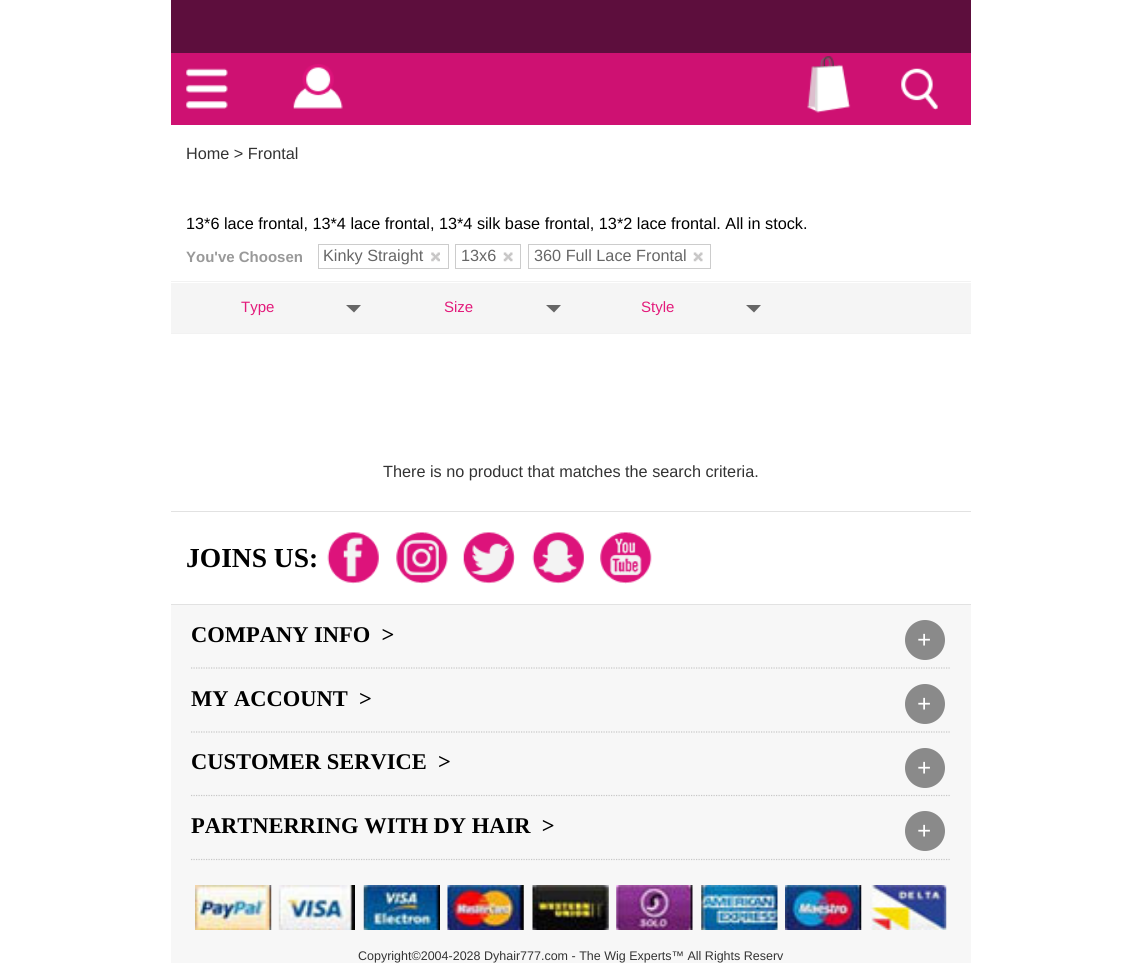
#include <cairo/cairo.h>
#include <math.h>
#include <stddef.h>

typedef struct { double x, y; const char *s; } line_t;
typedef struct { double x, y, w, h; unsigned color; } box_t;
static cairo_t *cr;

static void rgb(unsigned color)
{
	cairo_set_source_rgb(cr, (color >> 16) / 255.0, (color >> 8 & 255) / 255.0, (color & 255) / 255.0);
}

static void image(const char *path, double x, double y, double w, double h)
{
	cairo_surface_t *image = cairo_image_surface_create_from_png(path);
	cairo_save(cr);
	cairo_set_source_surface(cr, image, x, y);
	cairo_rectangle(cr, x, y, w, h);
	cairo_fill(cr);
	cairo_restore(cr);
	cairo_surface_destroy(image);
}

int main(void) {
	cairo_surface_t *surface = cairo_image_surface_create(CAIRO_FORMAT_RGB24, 1141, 963);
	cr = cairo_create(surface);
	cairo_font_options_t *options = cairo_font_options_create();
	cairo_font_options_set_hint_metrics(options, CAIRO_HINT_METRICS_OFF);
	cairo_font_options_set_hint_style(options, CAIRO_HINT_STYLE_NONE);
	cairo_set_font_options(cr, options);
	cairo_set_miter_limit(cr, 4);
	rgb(0xffffff);
	cairo_paint(cr);
	rgb(0x5d0e3d);
	cairo_rectangle(cr, 171, 0, 800, 53);
	cairo_fill(cr);
	rgb(0xce1172);
	cairo_rectangle(cr, 171, 53, 800, 72);
	cairo_fill(cr);
	image("img/1.png", 186, 68, 42, 41);
	image("img/2.png", 293, 64, 50, 45);
	image("img/3.png", 807, 56, 44, 57);
	image("img/4.png", 901, 68, 37, 42);
	cairo_rectangle(cr, 318.5, 244.5, 130, 24);
	rgb(0xcccccc);
	cairo_set_line_width(cr, 1);
	cairo_stroke(cr);
	image("img/5.png", 431, 252, 9, 10);
	cairo_rectangle(cr, 455.5, 244.5, 65, 24);
	cairo_stroke(cr);
	image("img/6.png", 503, 252, 10, 10);
	cairo_rectangle(cr, 528.5, 244.5, 182, 24);
	cairo_stroke(cr);
	image("img/7.png", 693, 252, 10, 10);
	{
		static const box_t items[] = {
			{171, 281, 800, 1, 0xf2f2f2},
			{171, 333, 800, 1, 0xf2f2f2},
			{171, 283, 800, 50, 0xf5f5f5},
		};
		for (size_t i = 0; i < sizeof items / sizeof *items; i++) {
			rgb(items[i].color);
			cairo_rectangle(cr, items[i].x, items[i].y, items[i].w, items[i].h);
			cairo_fill(cr);
		}
	}
	rgb(0x666666);
	cairo_new_path(cr);
	cairo_move_to(cr, 346, 305);
	cairo_line_to(cr, 361, 305);
	cairo_line_to(cr, 354, 312.5);
	cairo_close_path(cr);
	cairo_fill(cr);
	cairo_new_path(cr);
	cairo_move_to(cr, 546, 305);
	cairo_line_to(cr, 561, 305);
	cairo_line_to(cr, 554, 312.5);
	cairo_close_path(cr);
	cairo_fill(cr);
	cairo_new_path(cr);
	cairo_move_to(cr, 746, 305);
	cairo_line_to(cr, 761, 305);
	cairo_line_to(cr, 754, 312.5);
	cairo_close_path(cr);
	cairo_fill(cr);
	rgb(0xe2e2e2);
	cairo_rectangle(cr, 171, 511, 800, 1);
	cairo_fill(cr);
	cairo_rectangle(cr, 171, 604, 800, 1);
	cairo_fill(cr);
	image("img/8.png", 327, 532, 52, 52);
	image("img/9.png", 396, 532, 52, 52);
	image("img/10.png", 463, 532, 52, 52);
	image("img/11.png", 532, 532, 52, 52);
	image("img/12.png", 600, 532, 52, 52);
	rgb(0xf7f7f7);
	cairo_rectangle(cr, 171, 605, 800, 358);
	cairo_fill(cr);
	cairo_new_path(cr);
	cairo_move_to(cr, 191, 668);
	cairo_line_to(cr, 951, 668);
	rgb(0xc7c7c7);
	cairo_set_line_width(cr, 1.2);
	cairo_set_dash(cr, (double[]){1.25, 1.25}, 2, 0);
	cairo_stroke(cr);
	rgb(0x8a8a8a);
	cairo_arc(cr, 925, 640, 20, 0, 2 * M_PI);
	cairo_fill(cr);
	cairo_new_path(cr);
	cairo_move_to(cr, 191, 732);
	cairo_line_to(cr, 951, 732);
	rgb(0xc7c7c7);
	cairo_stroke(cr);
	rgb(0x8a8a8a);
	cairo_arc(cr, 925, 704, 20, 0, 2 * M_PI);
	cairo_fill(cr);
	cairo_new_path(cr);
	cairo_move_to(cr, 191, 795.5);
	cairo_line_to(cr, 951, 795.5);
	rgb(0xc7c7c7);
	cairo_stroke(cr);
	rgb(0x8a8a8a);
	cairo_arc(cr, 925, 768, 20, 0, 2 * M_PI);
	cairo_fill(cr);
	cairo_new_path(cr);
	cairo_move_to(cr, 191, 859.5);
	cairo_line_to(cr, 951, 859.5);
	rgb(0xc7c7c7);
	cairo_stroke(cr);
	rgb(0x8a8a8a);
	cairo_arc(cr, 925, 831, 20, 0, 2 * M_PI);
	cairo_fill(cr);
	image("img/13.png", 195, 885, 77, 45);
	image("img/14.png", 278, 885, 77, 45);
	image("img/15.png", 363, 885, 77, 45);
	image("img/16.png", 447, 885, 77, 45);
	image("img/17.png", 532, 885, 77, 45);
	image("img/18.png", 616, 885, 77, 45);
	image("img/19.png", 701, 885, 77, 45);
	image("img/20.png", 785, 885, 77, 45);
	image("img/21.png", 870, 885, 77, 45);
	cairo_select_font_face(cr, "Liberation Sans", CAIRO_FONT_SLANT_NORMAL, CAIRO_FONT_WEIGHT_NORMAL);
	cairo_set_font_size(cr, 16.25);
	rgb(0x333333);
	cairo_move_to(cr, 186, 159);
	cairo_show_text(cr, "Home > Frontal");
	rgb(0x000000);
	cairo_move_to(cr, 186, 229);
	cairo_show_text(cr, "13*6 lace frontal, 13*4 lace frontal, 13*4 silk base frontal, 13*2 lace frontal. All in stock.");
	cairo_select_font_face(cr, "Liberation Sans", CAIRO_FONT_SLANT_NORMAL, CAIRO_FONT_WEIGHT_BOLD);
	cairo_set_font_size(cr, 15);
	rgb(0x999999);
	cairo_move_to(cr, 186, 262);
	cairo_show_text(cr, "You've Choosen");
	cairo_select_font_face(cr, "Liberation Sans", CAIRO_FONT_SLANT_NORMAL, CAIRO_FONT_WEIGHT_NORMAL);
	cairo_set_font_size(cr, 16.25);
	rgb(0x666666);
	{
		static const line_t items[] = {
			{323, 261, "Kinky Straight"},
			{461, 261, "13x6"},
			{534, 261, "360 Full Lace Frontal"},
		};
		for (size_t i = 0; i < sizeof items / sizeof *items; i++) {
			cairo_move_to(cr, items[i].x, items[i].y);
			cairo_show_text(cr, items[i].s);
		}
	}
	cairo_set_font_size(cr, 15);
	rgb(0xe31b7b);
	{
		static const line_t items[] = {
			{241, 312, "Type"},
			{444, 312, "Size"},
			{641, 312, "Style"},
		};
		for (size_t i = 0; i < sizeof items / sizeof *items; i++) {
			cairo_move_to(cr, items[i].x, items[i].y);
			cairo_show_text(cr, items[i].s);
		}
	}
	cairo_set_font_size(cr, 16.25);
	rgb(0x333333);
	cairo_move_to(cr, 383, 477);
	cairo_show_text(cr, "There is no product that matches the search criteria.");
	cairo_select_font_face(cr, "Liberation Serif", CAIRO_FONT_SLANT_NORMAL, CAIRO_FONT_WEIGHT_BOLD);
	cairo_set_font_size(cr, 27.5);
	rgb(0x000000);
	cairo_move_to(cr, 186, 567);
	cairo_show_text(cr, "JOINS US:");
	cairo_set_font_size(cr, 22.5);
	cairo_move_to(cr, 191, 642);
	cairo_show_text(cr, "COMPANY INFO  >");
	cairo_set_font_size(cr, 25);
	rgb(0xffffff);
	cairo_move_to(cr, 917, 648);
	cairo_show_text(cr, "+");
	cairo_set_font_size(cr, 22.5);
	rgb(0x000000);
	cairo_move_to(cr, 191, 706);
	cairo_show_text(cr, "MY ACCOUNT  >");
	cairo_set_font_size(cr, 25);
	rgb(0xffffff);
	cairo_move_to(cr, 917, 712);
	cairo_show_text(cr, "+");
	cairo_set_font_size(cr, 22.5);
	rgb(0x000000);
	cairo_move_to(cr, 191, 769);
	cairo_show_text(cr, "CUSTOMER SERVICE  >");
	cairo_set_font_size(cr, 25);
	rgb(0xffffff);
	cairo_move_to(cr, 917, 776);
	cairo_show_text(cr, "+");
	cairo_set_font_size(cr, 22.5);
	rgb(0x000000);
	cairo_move_to(cr, 191, 833);
	cairo_show_text(cr, "PARTNERRING WITH DY HAIR  >");
	cairo_set_font_size(cr, 25);
	rgb(0xffffff);
	cairo_move_to(cr, 917, 839);
	cairo_show_text(cr, "+");
	cairo_select_font_face(cr, "Liberation Sans", CAIRO_FONT_SLANT_NORMAL, CAIRO_FONT_WEIGHT_NORMAL);
	cairo_set_font_size(cr, 12.5);
	rgb(0x333333);
	cairo_move_to(cr, 358, 960);
	cairo_show_text(cr, "Copyright©2004-2028 Dyhair777.com - The Wig Experts™ All Rights Reserv");
	cairo_surface_write_to_png(surface, "page.png");
	cairo_font_options_destroy(options);
	cairo_destroy(cr);
	cairo_surface_destroy(surface);
	return 0;
}
